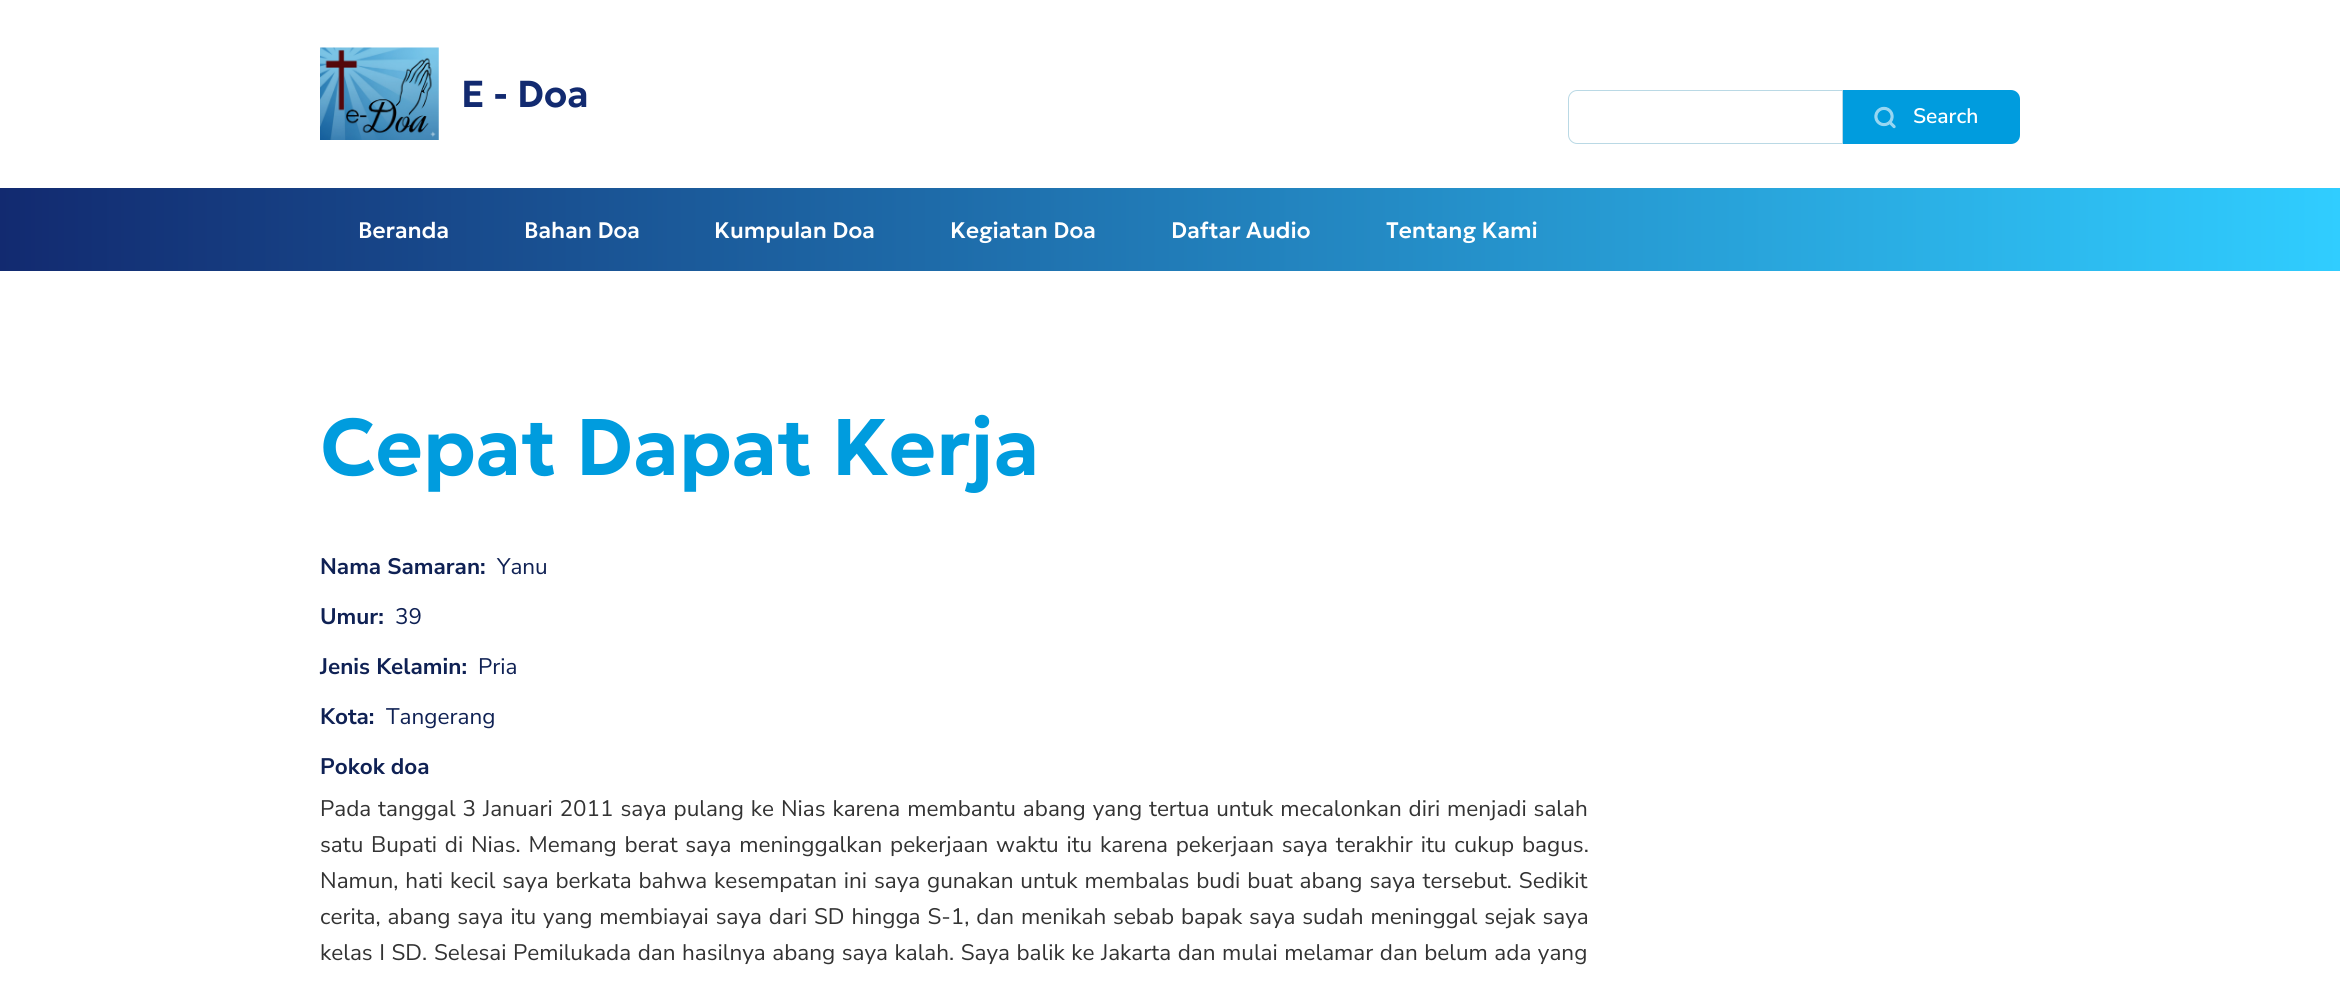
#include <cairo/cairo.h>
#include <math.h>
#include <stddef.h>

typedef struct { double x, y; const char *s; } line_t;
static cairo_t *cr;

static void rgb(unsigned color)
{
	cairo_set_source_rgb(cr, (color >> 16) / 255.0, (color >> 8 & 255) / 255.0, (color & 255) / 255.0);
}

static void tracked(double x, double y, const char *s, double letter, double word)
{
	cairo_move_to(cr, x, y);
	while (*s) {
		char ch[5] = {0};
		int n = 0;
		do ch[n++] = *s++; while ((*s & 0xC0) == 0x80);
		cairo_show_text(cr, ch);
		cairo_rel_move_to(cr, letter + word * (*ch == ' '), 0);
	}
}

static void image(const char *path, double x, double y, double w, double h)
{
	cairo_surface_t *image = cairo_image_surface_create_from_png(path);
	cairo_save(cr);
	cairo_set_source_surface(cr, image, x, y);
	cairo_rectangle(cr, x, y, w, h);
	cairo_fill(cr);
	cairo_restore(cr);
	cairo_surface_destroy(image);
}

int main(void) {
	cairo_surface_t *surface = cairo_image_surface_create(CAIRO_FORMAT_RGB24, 2340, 982);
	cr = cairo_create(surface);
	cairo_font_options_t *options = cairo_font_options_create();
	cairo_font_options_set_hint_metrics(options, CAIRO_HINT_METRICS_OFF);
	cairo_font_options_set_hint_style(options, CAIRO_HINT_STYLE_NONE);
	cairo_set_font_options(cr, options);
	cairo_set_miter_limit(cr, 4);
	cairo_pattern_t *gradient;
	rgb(0xffffff);
	cairo_paint(cr);
	image("img/1.png", 320, 47, 119, 93);
	cairo_new_path(cr);
	cairo_move_to(cr, 1577, 90.5);
	cairo_line_to(cr, 1842.5, 90.5);
	cairo_line_to(cr, 1842.5, 143.5);
	cairo_line_to(cr, 1577, 143.5);
	cairo_curve_to(cr, 1572.5, 143.5, 1568.5, 139.5, 1568.5, 135);
	cairo_line_to(cr, 1568.5, 99);
	cairo_curve_to(cr, 1568.5, 94.5, 1572.5, 90.5, 1577, 90.5);
	cairo_close_path(cr);
	rgb(0xbad9e5);
	cairo_set_line_width(cr, 1);
	cairo_stroke(cr);
	rgb(0x009cde);
	cairo_new_path(cr);
	cairo_move_to(cr, 1843, 90);
	cairo_line_to(cr, 2011, 90);
	cairo_curve_to(cr, 2016, 90, 2020, 94, 2020, 99);
	cairo_line_to(cr, 2020, 135);
	cairo_curve_to(cr, 2020, 140, 2016, 144, 2011, 144);
	cairo_line_to(cr, 1843, 144);
	cairo_close_path(cr);
	cairo_fill(cr);
	image("img/2.png", 1874, 106, 22, 23);
	gradient = cairo_pattern_create_linear(0, 229, 2340, 229);
	cairo_pattern_add_color_stop_rgba(gradient, 0, 0.071, 0.165, 0.439, 1);
	cairo_pattern_add_color_stop_rgba(gradient, 1, 0.188, 0.804, 1, 1);
	cairo_set_source(cr, gradient);
	cairo_pattern_destroy(gradient);
	cairo_rectangle(cr, 0, 188, 2340, 83);
	cairo_fill(cr);
	cairo_select_font_face(cr, "Geologica SemiBold", CAIRO_FONT_SLANT_NORMAL, CAIRO_FONT_WEIGHT_NORMAL);
	cairo_set_font_size(cr, 37.5);
	rgb(0x122a70);
	cairo_move_to(cr, 461, 107);
	cairo_show_text(cr, "E - Doa");
	cairo_select_font_face(cr, "Nunito Sans SemiBold", CAIRO_FONT_SLANT_NORMAL, CAIRO_FONT_WEIGHT_NORMAL);
	cairo_set_font_size(cr, 21);
	rgb(0xffffff);
	cairo_move_to(cr, 1913, 123);
	cairo_show_text(cr, "Search");
	cairo_select_font_face(cr, "Geologica Medium", CAIRO_FONT_SLANT_NORMAL, CAIRO_FONT_WEIGHT_NORMAL);
	cairo_set_font_size(cr, 22.5);
	{
		static const line_t items[] = {
			{358, 238, "Beranda"},
			{524, 238, "Bahan Doa"},
			{714, 238, "Kumpulan Doa"},
			{950, 238, "Kegiatan Doa"},
			{1171, 238, "Daftar Audio"},
			{1386, 238, "Tentang Kami"},
		};
		for (size_t i = 0; i < sizeof items / sizeof *items; i++) {
			cairo_move_to(cr, items[i].x, items[i].y);
			cairo_show_text(cr, items[i].s);
		}
	}
	cairo_select_font_face(cr, "Geologica SemiBold", CAIRO_FONT_SLANT_NORMAL, CAIRO_FONT_WEIGHT_NORMAL);
	cairo_set_font_size(cr, 80);
	rgb(0x009cde);
	cairo_move_to(cr, 320, 475);
	cairo_show_text(cr, "Cepat Dapat Kerja");
	cairo_select_font_face(cr, "Nunito Sans", CAIRO_FONT_SLANT_NORMAL, CAIRO_FONT_WEIGHT_BOLD);
	cairo_set_font_size(cr, 22.5);
	rgb(0x0f2154);
	cairo_move_to(cr, 320, 574);
	cairo_show_text(cr, "Nama Samaran:");
	cairo_select_font_face(cr, "Nunito Sans", CAIRO_FONT_SLANT_NORMAL, CAIRO_FONT_WEIGHT_NORMAL);
	cairo_move_to(cr, 497, 574);
	cairo_show_text(cr, "Yanu");
	cairo_select_font_face(cr, "Nunito Sans", CAIRO_FONT_SLANT_NORMAL, CAIRO_FONT_WEIGHT_BOLD);
	cairo_move_to(cr, 320, 624);
	cairo_show_text(cr, "Umur:");
	cairo_select_font_face(cr, "Nunito Sans", CAIRO_FONT_SLANT_NORMAL, CAIRO_FONT_WEIGHT_NORMAL);
	cairo_move_to(cr, 395, 624);
	cairo_show_text(cr, "39");
	cairo_select_font_face(cr, "Nunito Sans", CAIRO_FONT_SLANT_NORMAL, CAIRO_FONT_WEIGHT_BOLD);
	cairo_move_to(cr, 320, 674);
	cairo_show_text(cr, "Jenis Kelamin:");
	cairo_select_font_face(cr, "Nunito Sans", CAIRO_FONT_SLANT_NORMAL, CAIRO_FONT_WEIGHT_NORMAL);
	cairo_move_to(cr, 478, 674);
	cairo_show_text(cr, "Pria");
	cairo_select_font_face(cr, "Nunito Sans", CAIRO_FONT_SLANT_NORMAL, CAIRO_FONT_WEIGHT_BOLD);
	cairo_move_to(cr, 320, 724);
	cairo_show_text(cr, "Kota:");
	cairo_select_font_face(cr, "Nunito Sans", CAIRO_FONT_SLANT_NORMAL, CAIRO_FONT_WEIGHT_NORMAL);
	cairo_move_to(cr, 386, 724);
	cairo_show_text(cr, "Tangerang");
	cairo_select_font_face(cr, "Nunito Sans", CAIRO_FONT_SLANT_NORMAL, CAIRO_FONT_WEIGHT_BOLD);
	cairo_move_to(cr, 320, 774);
	cairo_show_text(cr, "Pokok doa");
	cairo_select_font_face(cr, "Nunito Sans", CAIRO_FONT_SLANT_NORMAL, CAIRO_FONT_WEIGHT_NORMAL);
	rgb(0x333333);
	tracked(320, 816, "Pada tanggal 3 Januari 2011 saya pulang ke Nias karena membantu abang yang tertua untuk mecalonkan diri menjadi salah", 0, 1.1);
	tracked(320, 852, "satu Bupati di Nias. Memang berat saya meninggalkan pekerjaan waktu itu karena pekerjaan saya terakhir itu cukup bagus.", 0, 2);
	tracked(320, 888, "Namun, hati kecil saya berkata bahwa kesempatan ini saya gunakan untuk membalas budi buat abang saya tersebut. Sedikit", 0, 1.1);
	tracked(320, 924, "cerita, abang saya itu yang membiayai saya dari SD hingga S-1, dan menikah sebab bapak saya sudah meninggal sejak saya", 0, 1.1);
	tracked(320, 960, "kelas I SD.", 0, 0.75);
	tracked(434, 960, "Selesai Pemilukada dan hasilnya abang saya kalah. Saya balik ke Jakarta dan mulai melamar dan belum ada yang", 0, 0.75);
	cairo_surface_write_to_png(surface, "page.png");
	cairo_font_options_destroy(options);
	cairo_destroy(cr);
	cairo_surface_destroy(surface);
	return 0;
}
